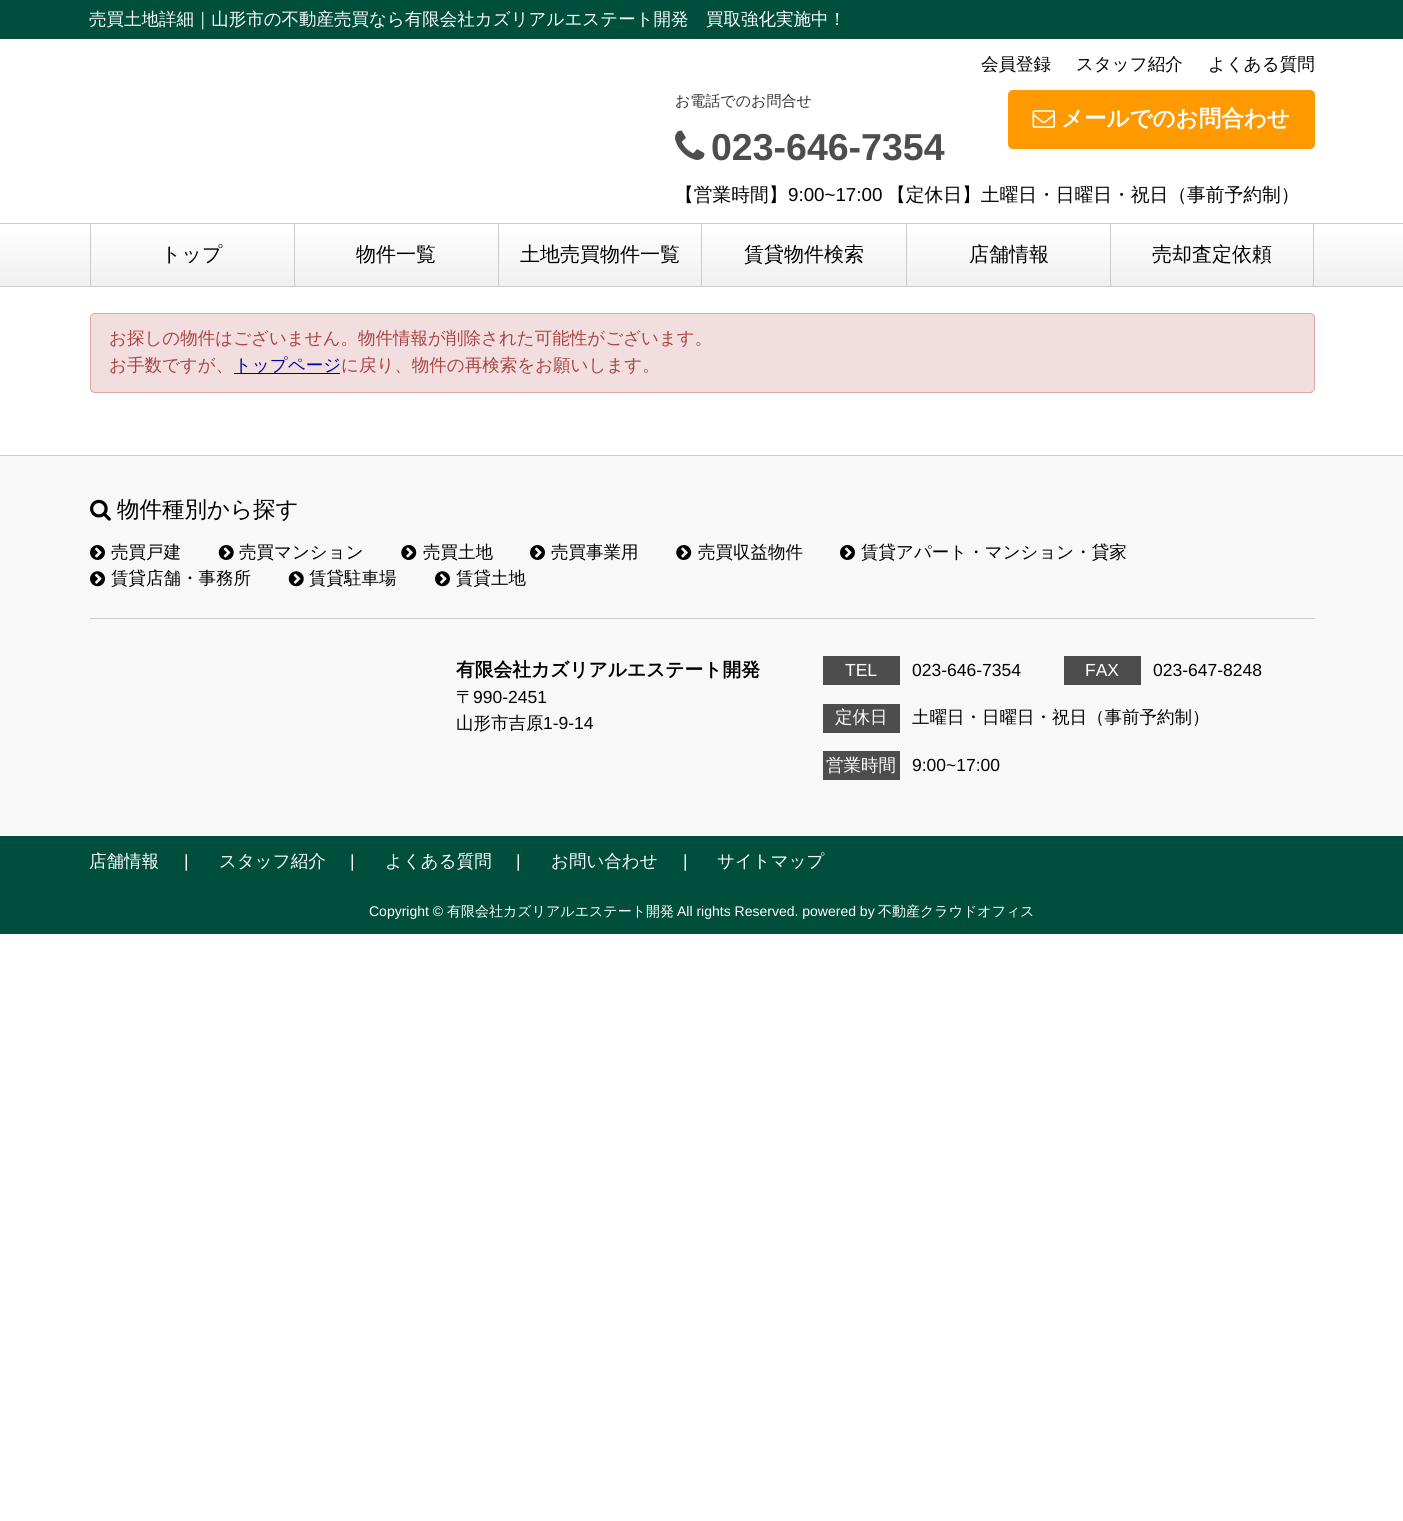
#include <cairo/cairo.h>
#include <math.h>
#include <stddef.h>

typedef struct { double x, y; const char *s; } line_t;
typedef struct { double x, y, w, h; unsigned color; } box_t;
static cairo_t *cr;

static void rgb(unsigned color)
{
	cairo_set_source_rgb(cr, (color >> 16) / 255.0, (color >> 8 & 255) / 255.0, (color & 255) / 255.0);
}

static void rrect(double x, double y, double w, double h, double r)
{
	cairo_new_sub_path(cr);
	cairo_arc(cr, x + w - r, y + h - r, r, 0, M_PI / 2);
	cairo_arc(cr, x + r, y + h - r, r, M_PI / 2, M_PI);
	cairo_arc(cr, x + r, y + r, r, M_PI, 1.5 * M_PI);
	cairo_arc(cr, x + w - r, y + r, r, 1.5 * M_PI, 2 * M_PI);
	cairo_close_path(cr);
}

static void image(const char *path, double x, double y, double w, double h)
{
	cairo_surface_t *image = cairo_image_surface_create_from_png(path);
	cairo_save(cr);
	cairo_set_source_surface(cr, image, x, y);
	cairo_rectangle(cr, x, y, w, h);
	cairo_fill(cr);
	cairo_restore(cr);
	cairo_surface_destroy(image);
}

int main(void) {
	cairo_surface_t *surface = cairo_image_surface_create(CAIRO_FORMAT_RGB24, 1403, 1521);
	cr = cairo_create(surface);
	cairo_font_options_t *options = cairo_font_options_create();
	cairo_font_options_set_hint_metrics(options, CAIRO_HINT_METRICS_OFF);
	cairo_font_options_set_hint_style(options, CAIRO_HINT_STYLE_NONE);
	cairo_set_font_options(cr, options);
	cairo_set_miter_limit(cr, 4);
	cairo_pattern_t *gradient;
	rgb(0xffffff);
	cairo_paint(cr);
	rgb(0x004f3c);
	cairo_rectangle(cr, 0, 0, 1403, 39);
	cairo_fill(cr);
	image("img/1.png", 675, 130, 30, 30);
	rgb(0xff9900);
	rrect(1008, 90, 307, 59, 5);
	cairo_fill(cr);
	image("img/2.png", 1032, 110, 23, 18);
	gradient = cairo_pattern_create_linear(702, 224, 702, 286);
	cairo_pattern_add_color_stop_rgba(gradient, 0, 1, 1, 1, 1);
	cairo_pattern_add_color_stop_rgba(gradient, 1, 0.941, 0.941, 0.941, 1);
	cairo_set_source(cr, gradient);
	cairo_pattern_destroy(gradient);
	cairo_rectangle(cr, 0, 234, 1403, 52);
	cairo_fill(cr);
	{
		static const box_t items[] = {
			{0, 223, 1403, 1, 0xcccccc},
			{0, 286, 1403, 1, 0xcccccc},
			{90, 224, 1, 62, 0xcccccc},
			{294, 224, 1, 62, 0xcccccc},
			{498, 224, 1, 62, 0xcccccc},
			{701, 224, 1, 62, 0xcccccc},
			{906, 224, 1, 62, 0xcccccc},
			{1313, 224, 1, 62, 0xcccccc},
			{1110, 224, 1, 62, 0xcccccc},
		};
		for (size_t i = 0; i < sizeof items / sizeof *items; i++) {
			rgb(items[i].color);
			cairo_rectangle(cr, items[i].x, items[i].y, items[i].w, items[i].h);
			cairo_fill(cr);
		}
	}
	rgb(0xf2dede);
	rrect(90.5, 313.5, 1224, 79, 4.5);
	cairo_fill_preserve(cr);
	rgb(0xdca7a7);
	cairo_set_line_width(cr, 1);
	cairo_stroke(cr);
	{
		static const box_t items[] = {
			{234, 373, 106, 1, 0x000099},
			{0, 456, 1403, 380, 0xf8f8f8},
			{0, 455, 1403, 1, 0xcccccc},
			{90, 618, 1225, 1, 0xcccccc},
		};
		for (size_t i = 0; i < sizeof items / sizeof *items; i++) {
			rgb(items[i].color);
			cairo_rectangle(cr, items[i].x, items[i].y, items[i].w, items[i].h);
			cairo_fill(cr);
		}
	}
	image("img/3.png", 90, 499, 21, 22);
	image("img/4.png", 90, 545, 15, 15);
	image("img/5.png", 218, 545, 16, 15);
	image("img/6.png", 401, 545, 16, 15);
	image("img/4.png", 530, 545, 15, 15);
	image("img/6.png", 676, 545, 16, 15);
	image("img/4.png", 840, 545, 15, 15);
	image("img/7.png", 90, 571, 15, 16);
	image("img/8.png", 288, 571, 16, 16);
	image("img/7.png", 435, 571, 15, 16);
	{
		static const box_t items[] = {
			{823, 656, 77, 29, 0x4d4d4d},
			{1064, 656, 77, 29, 0x4d4d4d},
			{823, 704, 77, 29, 0x4d4d4d},
			{823, 751, 77, 29, 0x4d4d4d},
			{0, 836, 1403, 98, 0x004f3c},
		};
		for (size_t i = 0; i < sizeof items / sizeof *items; i++) {
			rgb(items[i].color);
			cairo_rectangle(cr, items[i].x, items[i].y, items[i].w, items[i].h);
			cairo_fill(cr);
		}
	}
	cairo_select_font_face(cr, "WenQuanYi Zen Hei Medium", CAIRO_FONT_SLANT_NORMAL, CAIRO_FONT_WEIGHT_NORMAL);
	cairo_set_font_size(cr, 17.5);
	rgb(0xffffff);
	cairo_move_to(cr, 89, 25);
	cairo_show_text(cr, "売買土地詳細｜山形市の不動産売買なら有限会社カズリアルエステート開発　買取強化実施中！");
	rgb(0x000000);
	{
		static const line_t items[] = {
			{981, 70, "会員登録"},
			{1076, 70, "スタッフ紹介"},
			{1208, 70, "よくある質問"},
		};
		for (size_t i = 0; i < sizeof items / sizeof *items; i++) {
			cairo_move_to(cr, items[i].x, items[i].y);
			cairo_show_text(cr, items[i].s);
		}
	}
	cairo_set_font_size(cr, 15);
	rgb(0x333333);
	cairo_move_to(cr, 675, 106);
	cairo_show_text(cr, "お電話でのお問合せ");
	cairo_select_font_face(cr, "Liberation Sans", CAIRO_FONT_SLANT_NORMAL, CAIRO_FONT_WEIGHT_BOLD);
	cairo_set_font_size(cr, 37.5);
	rgb(0x4d4d4d);
	cairo_move_to(cr, 711, 160);
	cairo_show_text(cr, "023-646-7354");
	cairo_select_font_face(cr, "WenQuanYi Zen Hei", CAIRO_FONT_SLANT_NORMAL, CAIRO_FONT_WEIGHT_BOLD);
	cairo_set_font_size(cr, 22.5);
	rgb(0xffffff);
	cairo_move_to(cr, 1061, 126);
	cairo_show_text(cr, "メールでのお問合わせ");
	cairo_select_font_face(cr, "WenQuanYi Zen Hei Medium", CAIRO_FONT_SLANT_NORMAL, CAIRO_FONT_WEIGHT_NORMAL);
	cairo_set_font_size(cr, 18.75);
	rgb(0x000000);
	cairo_move_to(cr, 675, 201);
	cairo_show_text(cr, "【営業時間】");
	cairo_select_font_face(cr, "Liberation Sans", CAIRO_FONT_SLANT_NORMAL, CAIRO_FONT_WEIGHT_NORMAL);
	cairo_move_to(cr, 788, 201);
	cairo_show_text(cr, "9:00~17:00");
	cairo_select_font_face(cr, "WenQuanYi Zen Hei Medium", CAIRO_FONT_SLANT_NORMAL, CAIRO_FONT_WEIGHT_NORMAL);
	cairo_move_to(cr, 887, 201);
	cairo_show_text(cr, "【定休日】土曜日・日曜日・祝日（事前予約制）");
	cairo_set_font_size(cr, 20);
	{
		static const line_t items[] = {
			{161, 261, "トップ"},
			{356, 261, "物件一覧"},
			{520, 261, "土地売買物件一覧"},
			{744, 261, "賃貸物件検索"},
			{969, 261, "店舗情報"},
			{1152, 261, "売却査定依頼"},
		};
		for (size_t i = 0; i < sizeof items / sizeof *items; i++) {
			cairo_move_to(cr, items[i].x, items[i].y);
			cairo_show_text(cr, items[i].s);
		}
	}
	cairo_set_font_size(cr, 17.5);
	rgb(0xa94442);
	cairo_move_to(cr, 109, 344);
	cairo_show_text(cr, "お探しの物件はございません。物件情報が削除された可能性がございます。");
	cairo_move_to(cr, 109, 371);
	cairo_show_text(cr, "お手数ですが、");
	rgb(0x000099);
	cairo_move_to(cr, 234, 371);
	cairo_show_text(cr, "トップページ");
	rgb(0xa94442);
	cairo_move_to(cr, 341, 371);
	cairo_show_text(cr, "に戻り、物件の再検索をお願いします。");
	cairo_set_font_size(cr, 22.5);
	rgb(0x000000);
	cairo_move_to(cr, 117, 517);
	cairo_show_text(cr, "物件種別から探す");
	cairo_set_font_size(cr, 17.5);
	{
		static const line_t items[] = {
			{111, 558, "売買戸建"},
			{239, 558, "売買マンション"},
			{423, 558, "売買土地"},
			{551, 558, "売買事業用"},
			{698, 558, "売買収益物件"},
			{861, 558, "賃貸アパート・マンション・貸家"},
			{111, 584, "賃貸店舗・事務所"},
			{309, 584, "賃貸駐車場"},
			{456, 584, "賃貸土地"},
		};
		for (size_t i = 0; i < sizeof items / sizeof *items; i++) {
			cairo_move_to(cr, items[i].x, items[i].y);
			cairo_show_text(cr, items[i].s);
		}
	}
	cairo_select_font_face(cr, "WenQuanYi Zen Hei", CAIRO_FONT_SLANT_NORMAL, CAIRO_FONT_WEIGHT_BOLD);
	cairo_set_font_size(cr, 18.75);
	cairo_move_to(cr, 456, 676);
	cairo_show_text(cr, "有限会社カズリアルエステート開発");
	cairo_select_font_face(cr, "WenQuanYi Zen Hei Medium", CAIRO_FONT_SLANT_NORMAL, CAIRO_FONT_WEIGHT_NORMAL);
	cairo_set_font_size(cr, 17.5);
	cairo_move_to(cr, 456, 703);
	cairo_show_text(cr, "〒");
	cairo_select_font_face(cr, "Liberation Sans", CAIRO_FONT_SLANT_NORMAL, CAIRO_FONT_WEIGHT_NORMAL);
	cairo_move_to(cr, 473, 703);
	cairo_show_text(cr, "990-2451");
	cairo_select_font_face(cr, "WenQuanYi Zen Hei Medium", CAIRO_FONT_SLANT_NORMAL, CAIRO_FONT_WEIGHT_NORMAL);
	cairo_move_to(cr, 456, 729);
	cairo_show_text(cr, "山形市吉原");
	cairo_select_font_face(cr, "Liberation Sans", CAIRO_FONT_SLANT_NORMAL, CAIRO_FONT_WEIGHT_NORMAL);
	cairo_move_to(cr, 543, 729);
	cairo_show_text(cr, "1-9-14");
	rgb(0xffffff);
	cairo_move_to(cr, 845, 676);
	cairo_show_text(cr, "TEL");
	rgb(0x000000);
	cairo_move_to(cr, 912, 676);
	cairo_show_text(cr, "023-646-7354");
	rgb(0xffffff);
	cairo_move_to(cr, 1085, 676);
	cairo_show_text(cr, "FAX");
	rgb(0x000000);
	cairo_move_to(cr, 1153, 676);
	cairo_show_text(cr, "023-647-8248");
	cairo_select_font_face(cr, "WenQuanYi Zen Hei Medium", CAIRO_FONT_SLANT_NORMAL, CAIRO_FONT_WEIGHT_NORMAL);
	rgb(0xffffff);
	cairo_move_to(cr, 835, 723);
	cairo_show_text(cr, "定休日");
	rgb(0x000000);
	cairo_move_to(cr, 912, 723);
	cairo_show_text(cr, "土曜日・日曜日・祝日（事前予約制）");
	rgb(0xffffff);
	cairo_move_to(cr, 826, 771);
	cairo_show_text(cr, "営業時間");
	cairo_select_font_face(cr, "Liberation Sans", CAIRO_FONT_SLANT_NORMAL, CAIRO_FONT_WEIGHT_NORMAL);
	rgb(0x000000);
	cairo_move_to(cr, 912, 771);
	cairo_show_text(cr, "9:00~17:00");
	cairo_select_font_face(cr, "WenQuanYi Zen Hei Medium", CAIRO_FONT_SLANT_NORMAL, CAIRO_FONT_WEIGHT_NORMAL);
	rgb(0xffffff);
	cairo_move_to(cr, 89, 867);
	cairo_show_text(cr, "店舗情報");
	cairo_select_font_face(cr, "Liberation Sans", CAIRO_FONT_SLANT_NORMAL, CAIRO_FONT_WEIGHT_NORMAL);
	cairo_move_to(cr, 184, 867);
	cairo_show_text(cr, "|");
	cairo_select_font_face(cr, "WenQuanYi Zen Hei Medium", CAIRO_FONT_SLANT_NORMAL, CAIRO_FONT_WEIGHT_NORMAL);
	cairo_move_to(cr, 219, 867);
	cairo_show_text(cr, "スタッフ紹介");
	cairo_select_font_face(cr, "Liberation Sans", CAIRO_FONT_SLANT_NORMAL, CAIRO_FONT_WEIGHT_NORMAL);
	cairo_move_to(cr, 350, 867);
	cairo_show_text(cr, "|");
	cairo_select_font_face(cr, "WenQuanYi Zen Hei Medium", CAIRO_FONT_SLANT_NORMAL, CAIRO_FONT_WEIGHT_NORMAL);
	cairo_move_to(cr, 385, 867);
	cairo_show_text(cr, "よくある質問");
	cairo_select_font_face(cr, "Liberation Sans", CAIRO_FONT_SLANT_NORMAL, CAIRO_FONT_WEIGHT_NORMAL);
	cairo_move_to(cr, 516, 867);
	cairo_show_text(cr, "|");
	cairo_select_font_face(cr, "WenQuanYi Zen Hei Medium", CAIRO_FONT_SLANT_NORMAL, CAIRO_FONT_WEIGHT_NORMAL);
	cairo_move_to(cr, 551, 867);
	cairo_show_text(cr, "お問い合わせ");
	cairo_select_font_face(cr, "Liberation Sans", CAIRO_FONT_SLANT_NORMAL, CAIRO_FONT_WEIGHT_NORMAL);
	cairo_move_to(cr, 683, 867);
	cairo_show_text(cr, "|");
	cairo_select_font_face(cr, "WenQuanYi Zen Hei Medium", CAIRO_FONT_SLANT_NORMAL, CAIRO_FONT_WEIGHT_NORMAL);
	cairo_move_to(cr, 717, 867);
	cairo_show_text(cr, "サイトマップ");
	cairo_select_font_face(cr, "Liberation Sans", CAIRO_FONT_SLANT_NORMAL, CAIRO_FONT_WEIGHT_NORMAL);
	cairo_set_font_size(cr, 14);
	cairo_move_to(cr, 369, 916);
	cairo_show_text(cr, "Copyright ©");
	cairo_select_font_face(cr, "WenQuanYi Zen Hei Medium", CAIRO_FONT_SLANT_NORMAL, CAIRO_FONT_WEIGHT_NORMAL);
	cairo_move_to(cr, 447, 916);
	cairo_show_text(cr, "有限会社カズリアルエステート開発");
	cairo_select_font_face(cr, "Liberation Sans", CAIRO_FONT_SLANT_NORMAL, CAIRO_FONT_WEIGHT_NORMAL);
	cairo_move_to(cr, 677, 916);
	cairo_show_text(cr, "All rights Reserved. powered by");
	cairo_select_font_face(cr, "WenQuanYi Zen Hei Medium", CAIRO_FONT_SLANT_NORMAL, CAIRO_FONT_WEIGHT_NORMAL);
	cairo_move_to(cr, 878, 916);
	cairo_show_text(cr, "不動産クラウドオフィス");
	cairo_surface_write_to_png(surface, "page.png");
	cairo_font_options_destroy(options);
	cairo_destroy(cr);
	cairo_surface_destroy(surface);
	return 0;
}
